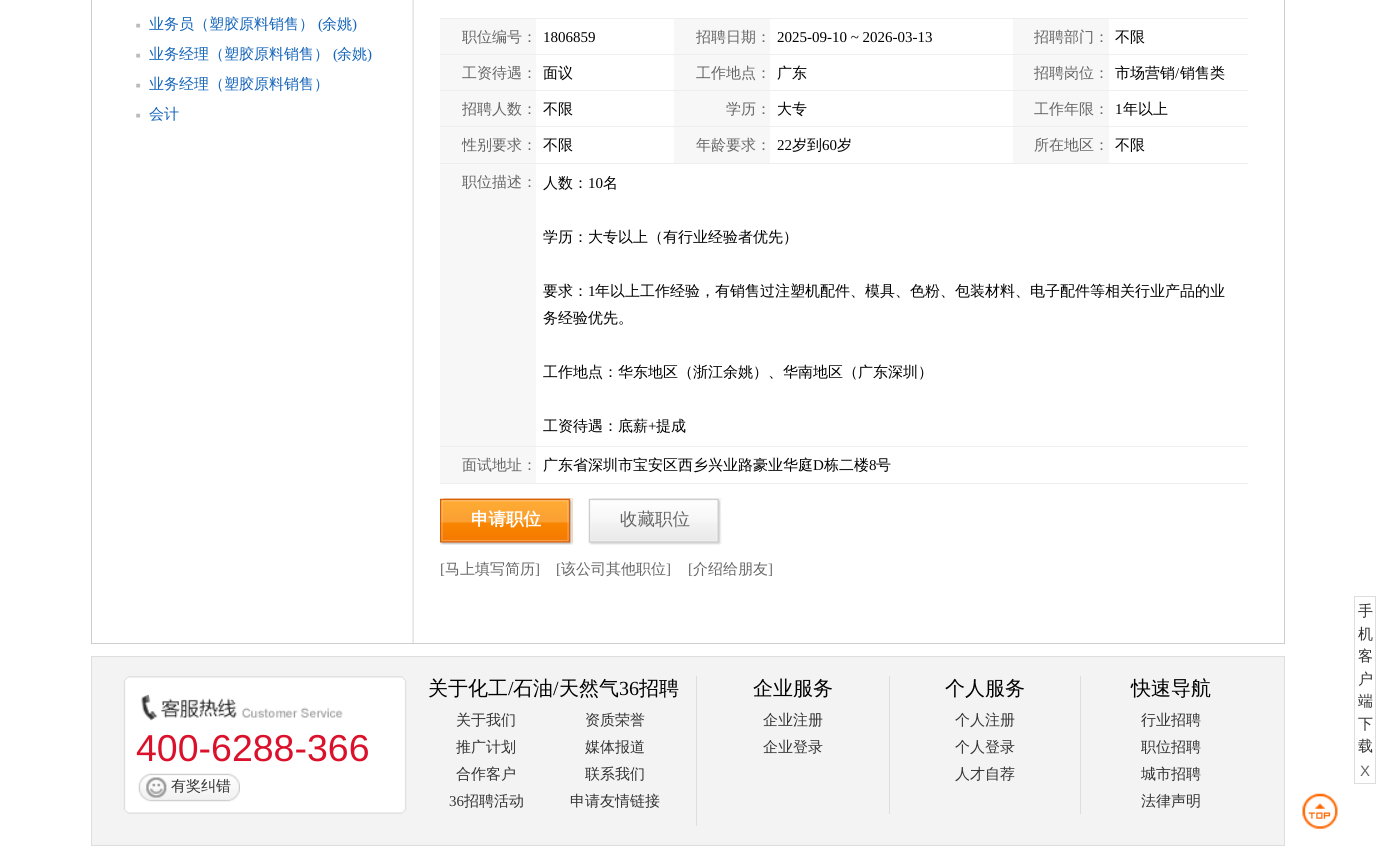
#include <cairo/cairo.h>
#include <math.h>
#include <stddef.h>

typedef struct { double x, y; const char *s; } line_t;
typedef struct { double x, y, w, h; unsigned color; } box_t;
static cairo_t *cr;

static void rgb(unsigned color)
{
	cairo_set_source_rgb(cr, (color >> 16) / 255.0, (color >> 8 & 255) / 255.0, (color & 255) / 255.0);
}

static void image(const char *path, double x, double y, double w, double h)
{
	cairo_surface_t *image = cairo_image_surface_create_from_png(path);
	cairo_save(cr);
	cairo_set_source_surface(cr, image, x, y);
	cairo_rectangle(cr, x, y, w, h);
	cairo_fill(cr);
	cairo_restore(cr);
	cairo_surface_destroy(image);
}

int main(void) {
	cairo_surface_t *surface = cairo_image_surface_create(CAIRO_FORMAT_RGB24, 1376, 846);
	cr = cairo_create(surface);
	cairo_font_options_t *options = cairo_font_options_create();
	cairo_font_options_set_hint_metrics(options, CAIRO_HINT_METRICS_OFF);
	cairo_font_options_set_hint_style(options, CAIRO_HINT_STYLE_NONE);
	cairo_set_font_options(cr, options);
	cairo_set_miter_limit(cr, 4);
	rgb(0xffffff);
	cairo_paint(cr);
	image("img/1.png", 412, 0, 2, 643);
	cairo_rectangle(cr, 91.5, -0.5, 1193, 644);
	rgb(0xcecece);
	cairo_set_line_width(cr, 1);
	cairo_stroke(cr);
	image("img/2.png", 136, 23, 5, 5);
	image("img/2.png", 136, 53, 5, 5);
	image("img/2.png", 136, 83, 5, 5);
	image("img/2.png", 136, 113, 5, 5);
	{
		static const box_t items[] = {
			{440, 19, 96, 35, 0xf7f7f7},
			{674, 19, 96, 35, 0xf7f7f7},
			{1013, 19, 96, 35, 0xf7f7f7},
			{440, 18, 808, 1, 0xeeeeee},
			{440, 55, 96, 35, 0xf7f7f7},
			{674, 55, 96, 35, 0xf7f7f7},
			{1013, 55, 96, 35, 0xf7f7f7},
			{440, 54, 808, 1, 0xeeeeee},
			{440, 91, 96, 72, 0xf7f7f7},
			{674, 91, 96, 72, 0xf7f7f7},
			{1013, 91, 96, 72, 0xf7f7f7},
			{440, 90, 808, 1, 0xeeeeee},
			{440, 126, 808, 1, 0xeeeeee},
			{440, 164, 96, 319, 0xf7f7f7},
			{440, 163, 808, 1, 0xeeeeee},
			{440, 446, 808, 1, 0xeeeeee},
			{440, 483, 808, 1, 0xeeeeee},
		};
		for (size_t i = 0; i < sizeof items / sizeof *items; i++) {
			rgb(items[i].color);
			cairo_rectangle(cr, items[i].x, items[i].y, items[i].w, items[i].h);
			cairo_fill(cr);
		}
	}
	image("img/3.png", 440, 498, 133, 47);
	image("img/4.png", 443, 498, 130, 47);
	image("img/5.png", 588, 498, 134, 47);
	image("img/6.png", 592, 498, 129, 47);
	rgb(0xf3f3f3);
	cairo_rectangle(cr, 91.5, 656.5, 1193, 189);
	cairo_fill_preserve(cr);
	rgb(0xdddddd);
	cairo_stroke(cr);
	image("img/7.png", 123, 676, 284, 138);
	image("img/8.png", 138, 773, 102, 29);
	{
		static const box_t items[] = {
			{696, 676, 1, 150, 0xdddddd},
			{889, 676, 1, 138, 0xdddddd},
			{1080, 676, 1, 138, 0xdddddd},
		};
		for (size_t i = 0; i < sizeof items / sizeof *items; i++) {
			rgb(items[i].color);
			cairo_rectangle(cr, items[i].x, items[i].y, items[i].w, items[i].h);
			cairo_fill(cr);
		}
	}
	cairo_rectangle(cr, 1354.5, 596.5, 21, 187);
	cairo_stroke(cr);
	image("img/9.png", 1302, 793, 36, 36);
	cairo_select_font_face(cr, "WenQuanYi Zen Hei Medium", CAIRO_FONT_SLANT_NORMAL, CAIRO_FONT_WEIGHT_NORMAL);
	cairo_set_font_size(cr, 15);
	rgb(0x1464b9);
	cairo_move_to(cr, 149, 29);
	cairo_show_text(cr, "业务员（塑胶原料销售）");
	cairo_select_font_face(cr, "Liberation Serif", CAIRO_FONT_SLANT_NORMAL, CAIRO_FONT_WEIGHT_NORMAL);
	cairo_move_to(cr, 318, 29);
	cairo_show_text(cr, "(");
	cairo_select_font_face(cr, "WenQuanYi Zen Hei Medium", CAIRO_FONT_SLANT_NORMAL, CAIRO_FONT_WEIGHT_NORMAL);
	cairo_move_to(cr, 322, 29);
	cairo_show_text(cr, "余姚");
	cairo_select_font_face(cr, "Liberation Serif", CAIRO_FONT_SLANT_NORMAL, CAIRO_FONT_WEIGHT_NORMAL);
	cairo_move_to(cr, 352, 29);
	cairo_show_text(cr, ")");
	cairo_select_font_face(cr, "WenQuanYi Zen Hei Medium", CAIRO_FONT_SLANT_NORMAL, CAIRO_FONT_WEIGHT_NORMAL);
	cairo_move_to(cr, 149, 59);
	cairo_show_text(cr, "业务经理（塑胶原料销售）");
	cairo_select_font_face(cr, "Liberation Serif", CAIRO_FONT_SLANT_NORMAL, CAIRO_FONT_WEIGHT_NORMAL);
	cairo_move_to(cr, 333, 59);
	cairo_show_text(cr, "(");
	cairo_select_font_face(cr, "WenQuanYi Zen Hei Medium", CAIRO_FONT_SLANT_NORMAL, CAIRO_FONT_WEIGHT_NORMAL);
	cairo_move_to(cr, 337, 59);
	cairo_show_text(cr, "余姚");
	cairo_select_font_face(cr, "Liberation Serif", CAIRO_FONT_SLANT_NORMAL, CAIRO_FONT_WEIGHT_NORMAL);
	cairo_move_to(cr, 367, 59);
	cairo_show_text(cr, ")");
	cairo_select_font_face(cr, "WenQuanYi Zen Hei Medium", CAIRO_FONT_SLANT_NORMAL, CAIRO_FONT_WEIGHT_NORMAL);
	cairo_move_to(cr, 149, 89);
	cairo_show_text(cr, "业务经理（塑胶原料销售）");
	cairo_move_to(cr, 149, 119);
	cairo_show_text(cr, "会计");
	rgb(0x666666);
	cairo_move_to(cr, 462, 42);
	cairo_show_text(cr, "职位编号：");
	cairo_select_font_face(cr, "Liberation Serif", CAIRO_FONT_SLANT_NORMAL, CAIRO_FONT_WEIGHT_NORMAL);
	rgb(0x000000);
	cairo_move_to(cr, 543, 42);
	cairo_show_text(cr, "1806859");
	cairo_select_font_face(cr, "WenQuanYi Zen Hei Medium", CAIRO_FONT_SLANT_NORMAL, CAIRO_FONT_WEIGHT_NORMAL);
	rgb(0x666666);
	cairo_move_to(cr, 696, 42);
	cairo_show_text(cr, "招聘日期：");
	cairo_select_font_face(cr, "Liberation Serif", CAIRO_FONT_SLANT_NORMAL, CAIRO_FONT_WEIGHT_NORMAL);
	rgb(0x000000);
	cairo_move_to(cr, 777, 42);
	cairo_show_text(cr, "2025-09-10 ~ 2026-03-13");
	cairo_select_font_face(cr, "WenQuanYi Zen Hei Medium", CAIRO_FONT_SLANT_NORMAL, CAIRO_FONT_WEIGHT_NORMAL);
	rgb(0x666666);
	cairo_move_to(cr, 1034, 42);
	cairo_show_text(cr, "招聘部门：");
	rgb(0x000000);
	cairo_move_to(cr, 1115, 42);
	cairo_show_text(cr, "不限");
	rgb(0x666666);
	cairo_move_to(cr, 462, 78);
	cairo_show_text(cr, "工资待遇：");
	rgb(0x000000);
	cairo_move_to(cr, 543, 78);
	cairo_show_text(cr, "面议");
	rgb(0x666666);
	cairo_move_to(cr, 696, 78);
	cairo_show_text(cr, "工作地点：");
	rgb(0x000000);
	cairo_move_to(cr, 777, 78);
	cairo_show_text(cr, "广东");
	rgb(0x666666);
	cairo_move_to(cr, 1034, 78);
	cairo_show_text(cr, "招聘岗位：");
	rgb(0x000000);
	cairo_move_to(cr, 1115, 78);
	cairo_show_text(cr, "市场营销");
	cairo_select_font_face(cr, "Liberation Serif", CAIRO_FONT_SLANT_NORMAL, CAIRO_FONT_WEIGHT_NORMAL);
	cairo_move_to(cr, 1175, 78);
	cairo_show_text(cr, "/");
	cairo_select_font_face(cr, "WenQuanYi Zen Hei Medium", CAIRO_FONT_SLANT_NORMAL, CAIRO_FONT_WEIGHT_NORMAL);
	cairo_move_to(cr, 1180, 78);
	cairo_show_text(cr, "销售类");
	rgb(0x666666);
	cairo_move_to(cr, 462, 114);
	cairo_show_text(cr, "招聘人数：");
	rgb(0x000000);
	cairo_move_to(cr, 543, 114);
	cairo_show_text(cr, "不限");
	rgb(0x666666);
	cairo_move_to(cr, 726, 114);
	cairo_show_text(cr, "学历：");
	rgb(0x000000);
	cairo_move_to(cr, 777, 114);
	cairo_show_text(cr, "大专");
	rgb(0x666666);
	cairo_move_to(cr, 1034, 114);
	cairo_show_text(cr, "工作年限：");
	cairo_select_font_face(cr, "Liberation Serif", CAIRO_FONT_SLANT_NORMAL, CAIRO_FONT_WEIGHT_NORMAL);
	rgb(0x000000);
	cairo_move_to(cr, 1115, 114);
	cairo_show_text(cr, "1");
	cairo_select_font_face(cr, "WenQuanYi Zen Hei Medium", CAIRO_FONT_SLANT_NORMAL, CAIRO_FONT_WEIGHT_NORMAL);
	cairo_move_to(cr, 1123, 114);
	cairo_show_text(cr, "年以上");
	rgb(0x666666);
	cairo_move_to(cr, 462, 150);
	cairo_show_text(cr, "性别要求：");
	rgb(0x000000);
	cairo_move_to(cr, 543, 150);
	cairo_show_text(cr, "不限");
	rgb(0x666666);
	cairo_move_to(cr, 696, 150);
	cairo_show_text(cr, "年龄要求：");
	cairo_select_font_face(cr, "Liberation Serif", CAIRO_FONT_SLANT_NORMAL, CAIRO_FONT_WEIGHT_NORMAL);
	rgb(0x000000);
	cairo_move_to(cr, 777, 150);
	cairo_show_text(cr, "22");
	cairo_select_font_face(cr, "WenQuanYi Zen Hei Medium", CAIRO_FONT_SLANT_NORMAL, CAIRO_FONT_WEIGHT_NORMAL);
	cairo_move_to(cr, 792, 150);
	cairo_show_text(cr, "岁到");
	cairo_select_font_face(cr, "Liberation Serif", CAIRO_FONT_SLANT_NORMAL, CAIRO_FONT_WEIGHT_NORMAL);
	cairo_move_to(cr, 822, 150);
	cairo_show_text(cr, "60");
	cairo_select_font_face(cr, "WenQuanYi Zen Hei Medium", CAIRO_FONT_SLANT_NORMAL, CAIRO_FONT_WEIGHT_NORMAL);
	cairo_move_to(cr, 837, 150);
	cairo_show_text(cr, "岁");
	rgb(0x666666);
	cairo_move_to(cr, 1034, 150);
	cairo_show_text(cr, "所在地区：");
	rgb(0x000000);
	cairo_move_to(cr, 1115, 150);
	cairo_show_text(cr, "不限");
	rgb(0x666666);
	cairo_move_to(cr, 462, 187);
	cairo_show_text(cr, "职位描述：");
	rgb(0x000000);
	cairo_move_to(cr, 543, 188);
	cairo_show_text(cr, "人数：");
	cairo_select_font_face(cr, "Liberation Serif", CAIRO_FONT_SLANT_NORMAL, CAIRO_FONT_WEIGHT_NORMAL);
	cairo_move_to(cr, 588, 188);
	cairo_show_text(cr, "10");
	cairo_select_font_face(cr, "WenQuanYi Zen Hei Medium", CAIRO_FONT_SLANT_NORMAL, CAIRO_FONT_WEIGHT_NORMAL);
	{
		static const line_t items[] = {
			{603, 188, "名"},
			{543, 242, "学历：大专以上（有行业经验者优先）"},
			{543, 296, "要求："},
		};
		for (size_t i = 0; i < sizeof items / sizeof *items; i++) {
			cairo_move_to(cr, items[i].x, items[i].y);
			cairo_show_text(cr, items[i].s);
		}
	}
	cairo_select_font_face(cr, "Liberation Serif", CAIRO_FONT_SLANT_NORMAL, CAIRO_FONT_WEIGHT_NORMAL);
	cairo_move_to(cr, 588, 296);
	cairo_show_text(cr, "1");
	cairo_select_font_face(cr, "WenQuanYi Zen Hei Medium", CAIRO_FONT_SLANT_NORMAL, CAIRO_FONT_WEIGHT_NORMAL);
	{
		static const line_t items[] = {
			{595, 296, "年以上工作经验，有销售过注塑机配件、模具、色粉、包装材料、电子配件等相关行业产品的业"},
			{543, 323, "务经验优先。"},
			{543, 377, "工作地点：华东地区（浙江余姚）、华南地区（广东深圳）"},
			{543, 431, "工资待遇：底薪"},
		};
		for (size_t i = 0; i < sizeof items / sizeof *items; i++) {
			cairo_move_to(cr, items[i].x, items[i].y);
			cairo_show_text(cr, items[i].s);
		}
	}
	cairo_select_font_face(cr, "Liberation Serif", CAIRO_FONT_SLANT_NORMAL, CAIRO_FONT_WEIGHT_NORMAL);
	cairo_move_to(cr, 648, 431);
	cairo_show_text(cr, "+");
	cairo_select_font_face(cr, "WenQuanYi Zen Hei Medium", CAIRO_FONT_SLANT_NORMAL, CAIRO_FONT_WEIGHT_NORMAL);
	cairo_move_to(cr, 656, 431);
	cairo_show_text(cr, "提成");
	rgb(0x666666);
	cairo_move_to(cr, 462, 470);
	cairo_show_text(cr, "面试地址：");
	rgb(0x000000);
	cairo_move_to(cr, 543, 470);
	cairo_show_text(cr, "广东省深圳市宝安区西乡兴业路豪业华庭");
	cairo_select_font_face(cr, "Liberation Serif", CAIRO_FONT_SLANT_NORMAL, CAIRO_FONT_WEIGHT_NORMAL);
	cairo_move_to(cr, 813, 470);
	cairo_show_text(cr, "D");
	cairo_select_font_face(cr, "WenQuanYi Zen Hei Medium", CAIRO_FONT_SLANT_NORMAL, CAIRO_FONT_WEIGHT_NORMAL);
	cairo_move_to(cr, 824, 470);
	cairo_show_text(cr, "栋二楼");
	cairo_select_font_face(cr, "Liberation Serif", CAIRO_FONT_SLANT_NORMAL, CAIRO_FONT_WEIGHT_NORMAL);
	cairo_move_to(cr, 869, 470);
	cairo_show_text(cr, "8");
	cairo_select_font_face(cr, "WenQuanYi Zen Hei Medium", CAIRO_FONT_SLANT_NORMAL, CAIRO_FONT_WEIGHT_NORMAL);
	cairo_move_to(cr, 876, 470);
	cairo_show_text(cr, "号");
	cairo_select_font_face(cr, "WenQuanYi Zen Hei", CAIRO_FONT_SLANT_NORMAL, CAIRO_FONT_WEIGHT_BOLD);
	cairo_set_font_size(cr, 17.5);
	rgb(0xffffff);
	cairo_move_to(cr, 471, 525);
	cairo_show_text(cr, "申请职位");
	cairo_select_font_face(cr, "WenQuanYi Zen Hei Medium", CAIRO_FONT_SLANT_NORMAL, CAIRO_FONT_WEIGHT_NORMAL);
	rgb(0x666666);
	cairo_move_to(cr, 620, 525);
	cairo_show_text(cr, "收藏职位");
	cairo_select_font_face(cr, "Liberation Serif", CAIRO_FONT_SLANT_NORMAL, CAIRO_FONT_WEIGHT_NORMAL);
	cairo_set_font_size(cr, 15);
	cairo_move_to(cr, 440, 574);
	cairo_show_text(cr, "[");
	cairo_select_font_face(cr, "WenQuanYi Zen Hei Medium", CAIRO_FONT_SLANT_NORMAL, CAIRO_FONT_WEIGHT_NORMAL);
	cairo_move_to(cr, 445, 574);
	cairo_show_text(cr, "马上填写简历");
	cairo_select_font_face(cr, "Liberation Serif", CAIRO_FONT_SLANT_NORMAL, CAIRO_FONT_WEIGHT_NORMAL);
	cairo_move_to(cr, 535, 574);
	cairo_show_text(cr, "]");
	cairo_move_to(cr, 556, 574);
	cairo_show_text(cr, "[");
	cairo_select_font_face(cr, "WenQuanYi Zen Hei Medium", CAIRO_FONT_SLANT_NORMAL, CAIRO_FONT_WEIGHT_NORMAL);
	cairo_move_to(cr, 561, 574);
	cairo_show_text(cr, "该公司其他职位");
	cairo_select_font_face(cr, "Liberation Serif", CAIRO_FONT_SLANT_NORMAL, CAIRO_FONT_WEIGHT_NORMAL);
	cairo_move_to(cr, 666, 574);
	cairo_show_text(cr, "]");
	cairo_move_to(cr, 688, 574);
	cairo_show_text(cr, "[");
	cairo_select_font_face(cr, "WenQuanYi Zen Hei Medium", CAIRO_FONT_SLANT_NORMAL, CAIRO_FONT_WEIGHT_NORMAL);
	cairo_move_to(cr, 693, 574);
	cairo_show_text(cr, "介绍给朋友");
	cairo_select_font_face(cr, "Liberation Serif", CAIRO_FONT_SLANT_NORMAL, CAIRO_FONT_WEIGHT_NORMAL);
	cairo_move_to(cr, 768, 574);
	cairo_show_text(cr, "]");
	cairo_select_font_face(cr, "Liberation Sans", CAIRO_FONT_SLANT_NORMAL, CAIRO_FONT_WEIGHT_NORMAL);
	cairo_set_font_size(cr, 37.5);
	rgb(0xdb112b);
	cairo_move_to(cr, 136, 761);
	cairo_show_text(cr, "400-6288-366");
	cairo_select_font_face(cr, "WenQuanYi Zen Hei Medium", CAIRO_FONT_SLANT_NORMAL, CAIRO_FONT_WEIGHT_NORMAL);
	cairo_set_font_size(cr, 15);
	rgb(0x333333);
	cairo_move_to(cr, 171, 791);
	cairo_show_text(cr, "有奖纠错");
	cairo_set_font_size(cr, 20);
	rgb(0x000000);
	cairo_move_to(cr, 428, 695);
	cairo_show_text(cr, "关于化工");
	cairo_select_font_face(cr, "Liberation Serif", CAIRO_FONT_SLANT_NORMAL, CAIRO_FONT_WEIGHT_NORMAL);
	cairo_move_to(cr, 508, 695);
	cairo_show_text(cr, "/");
	cairo_select_font_face(cr, "WenQuanYi Zen Hei Medium", CAIRO_FONT_SLANT_NORMAL, CAIRO_FONT_WEIGHT_NORMAL);
	cairo_move_to(cr, 513, 695);
	cairo_show_text(cr, "石油");
	cairo_select_font_face(cr, "Liberation Serif", CAIRO_FONT_SLANT_NORMAL, CAIRO_FONT_WEIGHT_NORMAL);
	cairo_move_to(cr, 553, 695);
	cairo_show_text(cr, "/");
	cairo_select_font_face(cr, "WenQuanYi Zen Hei Medium", CAIRO_FONT_SLANT_NORMAL, CAIRO_FONT_WEIGHT_NORMAL);
	cairo_move_to(cr, 559, 695);
	cairo_show_text(cr, "天然气");
	cairo_select_font_face(cr, "Liberation Serif", CAIRO_FONT_SLANT_NORMAL, CAIRO_FONT_WEIGHT_NORMAL);
	cairo_move_to(cr, 619, 695);
	cairo_show_text(cr, "36");
	cairo_select_font_face(cr, "WenQuanYi Zen Hei Medium", CAIRO_FONT_SLANT_NORMAL, CAIRO_FONT_WEIGHT_NORMAL);
	cairo_move_to(cr, 639, 695);
	cairo_show_text(cr, "招聘");
	cairo_set_font_size(cr, 15);
	rgb(0x333333);
	{
		static const line_t items[] = {
			{456, 725, "关于我们"},
			{585, 725, "资质荣誉"},
			{456, 752, "推广计划"},
			{585, 752, "媒体报道"},
			{456, 779, "合作客户"},
			{585, 779, "联系我们"},
		};
		for (size_t i = 0; i < sizeof items / sizeof *items; i++) {
			cairo_move_to(cr, items[i].x, items[i].y);
			cairo_show_text(cr, items[i].s);
		}
	}
	cairo_select_font_face(cr, "Liberation Serif", CAIRO_FONT_SLANT_NORMAL, CAIRO_FONT_WEIGHT_NORMAL);
	cairo_move_to(cr, 449, 806);
	cairo_show_text(cr, "36");
	cairo_select_font_face(cr, "WenQuanYi Zen Hei Medium", CAIRO_FONT_SLANT_NORMAL, CAIRO_FONT_WEIGHT_NORMAL);
	cairo_move_to(cr, 464, 806);
	cairo_show_text(cr, "招聘活动");
	cairo_move_to(cr, 570, 806);
	cairo_show_text(cr, "申请友情链接");
	cairo_set_font_size(cr, 20);
	rgb(0x000000);
	cairo_move_to(cr, 753, 695);
	cairo_show_text(cr, "企业服务");
	cairo_set_font_size(cr, 15);
	rgb(0x333333);
	cairo_move_to(cr, 763, 725);
	cairo_show_text(cr, "企业注册");
	cairo_move_to(cr, 763, 752);
	cairo_show_text(cr, "企业登录");
	cairo_set_font_size(cr, 20);
	rgb(0x000000);
	cairo_move_to(cr, 945, 695);
	cairo_show_text(cr, "个人服务");
	cairo_set_font_size(cr, 15);
	rgb(0x333333);
	{
		static const line_t items[] = {
			{955, 725, "个人注册"},
			{955, 752, "个人登录"},
			{955, 779, "人才自荐"},
		};
		for (size_t i = 0; i < sizeof items / sizeof *items; i++) {
			cairo_move_to(cr, items[i].x, items[i].y);
			cairo_show_text(cr, items[i].s);
		}
	}
	cairo_set_font_size(cr, 20);
	rgb(0x000000);
	cairo_move_to(cr, 1131, 695);
	cairo_show_text(cr, "快速导航");
	cairo_set_font_size(cr, 15);
	rgb(0x333333);
	{
		static const line_t items[] = {
			{1141, 725, "行业招聘"},
			{1141, 752, "职位招聘"},
			{1141, 779, "城市招聘"},
			{1141, 806, "法律声明"},
			{1358, 616, "手"},
			{1358, 639, "机"},
			{1358, 661, "客"},
			{1358, 684, "户"},
			{1358, 706, "端"},
			{1358, 729, "下"},
			{1358, 751, "载"},
		};
		for (size_t i = 0; i < sizeof items / sizeof *items; i++) {
			cairo_move_to(cr, items[i].x, items[i].y);
			cairo_show_text(cr, items[i].s);
		}
	}
	cairo_select_font_face(cr, "Liberation Sans", CAIRO_FONT_SLANT_NORMAL, CAIRO_FONT_WEIGHT_NORMAL);
	rgb(0x666666);
	cairo_move_to(cr, 1360, 776);
	cairo_show_text(cr, "X");
	cairo_surface_write_to_png(surface, "page.png");
	cairo_font_options_destroy(options);
	cairo_destroy(cr);
	cairo_surface_destroy(surface);
	return 0;
}
